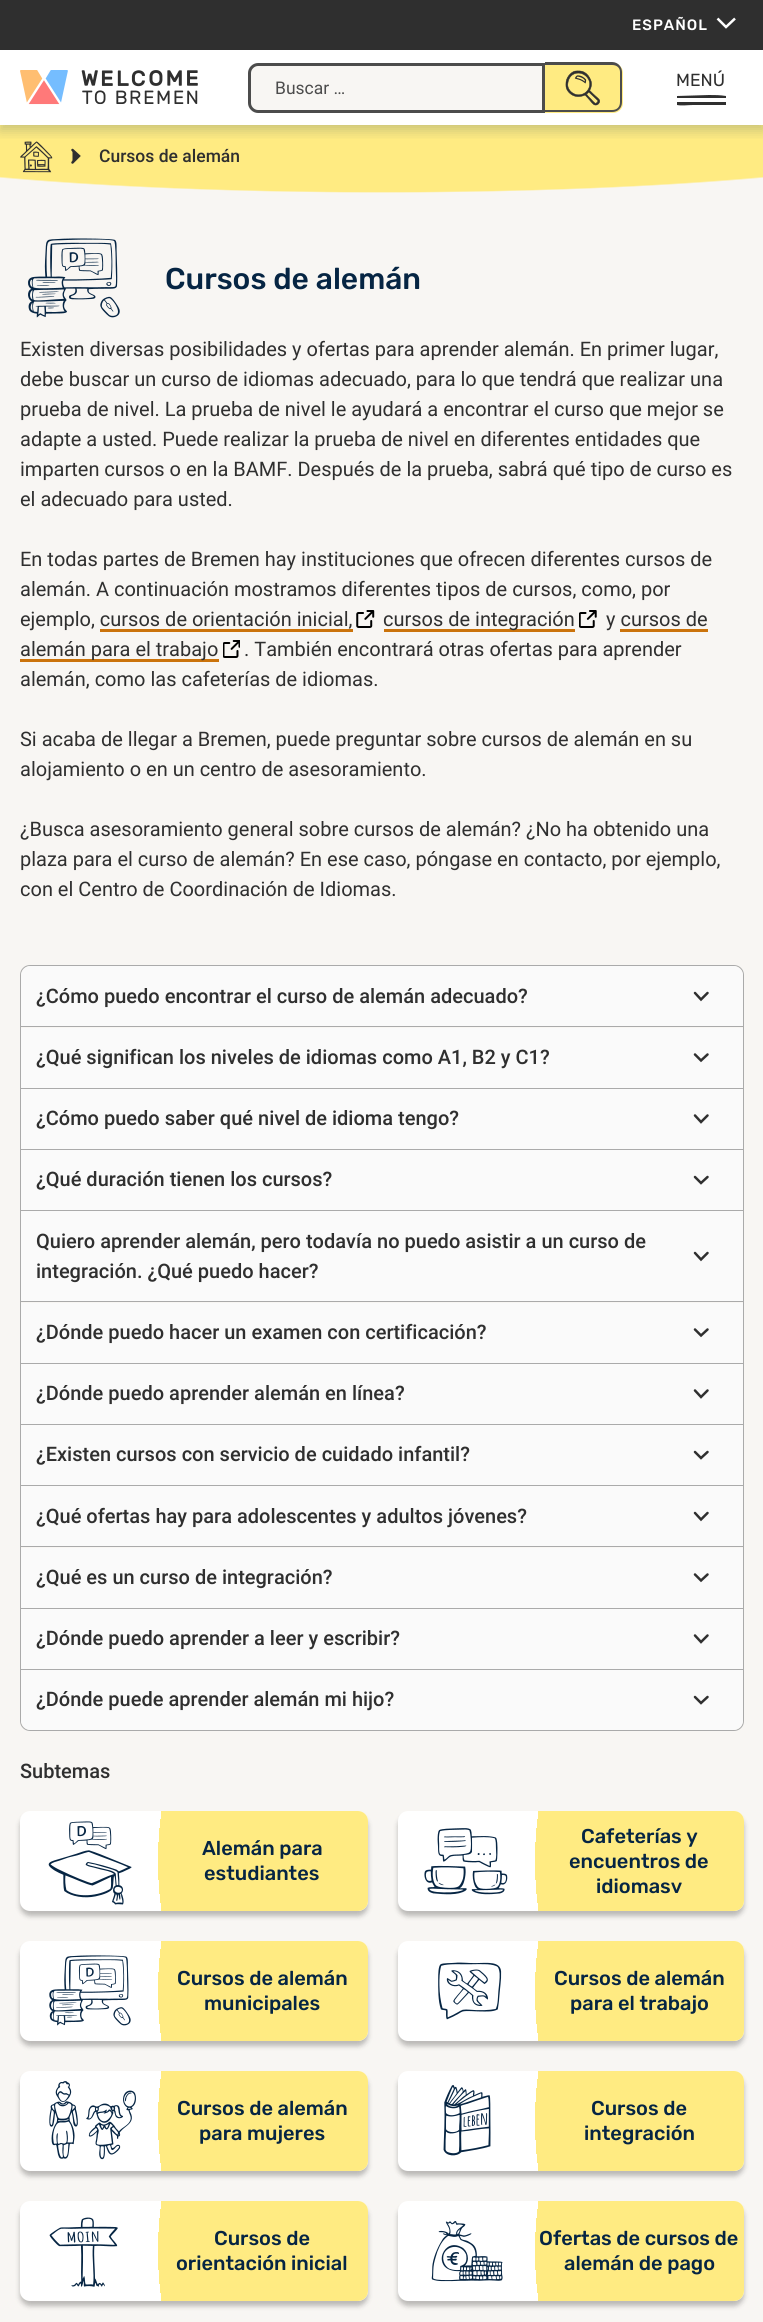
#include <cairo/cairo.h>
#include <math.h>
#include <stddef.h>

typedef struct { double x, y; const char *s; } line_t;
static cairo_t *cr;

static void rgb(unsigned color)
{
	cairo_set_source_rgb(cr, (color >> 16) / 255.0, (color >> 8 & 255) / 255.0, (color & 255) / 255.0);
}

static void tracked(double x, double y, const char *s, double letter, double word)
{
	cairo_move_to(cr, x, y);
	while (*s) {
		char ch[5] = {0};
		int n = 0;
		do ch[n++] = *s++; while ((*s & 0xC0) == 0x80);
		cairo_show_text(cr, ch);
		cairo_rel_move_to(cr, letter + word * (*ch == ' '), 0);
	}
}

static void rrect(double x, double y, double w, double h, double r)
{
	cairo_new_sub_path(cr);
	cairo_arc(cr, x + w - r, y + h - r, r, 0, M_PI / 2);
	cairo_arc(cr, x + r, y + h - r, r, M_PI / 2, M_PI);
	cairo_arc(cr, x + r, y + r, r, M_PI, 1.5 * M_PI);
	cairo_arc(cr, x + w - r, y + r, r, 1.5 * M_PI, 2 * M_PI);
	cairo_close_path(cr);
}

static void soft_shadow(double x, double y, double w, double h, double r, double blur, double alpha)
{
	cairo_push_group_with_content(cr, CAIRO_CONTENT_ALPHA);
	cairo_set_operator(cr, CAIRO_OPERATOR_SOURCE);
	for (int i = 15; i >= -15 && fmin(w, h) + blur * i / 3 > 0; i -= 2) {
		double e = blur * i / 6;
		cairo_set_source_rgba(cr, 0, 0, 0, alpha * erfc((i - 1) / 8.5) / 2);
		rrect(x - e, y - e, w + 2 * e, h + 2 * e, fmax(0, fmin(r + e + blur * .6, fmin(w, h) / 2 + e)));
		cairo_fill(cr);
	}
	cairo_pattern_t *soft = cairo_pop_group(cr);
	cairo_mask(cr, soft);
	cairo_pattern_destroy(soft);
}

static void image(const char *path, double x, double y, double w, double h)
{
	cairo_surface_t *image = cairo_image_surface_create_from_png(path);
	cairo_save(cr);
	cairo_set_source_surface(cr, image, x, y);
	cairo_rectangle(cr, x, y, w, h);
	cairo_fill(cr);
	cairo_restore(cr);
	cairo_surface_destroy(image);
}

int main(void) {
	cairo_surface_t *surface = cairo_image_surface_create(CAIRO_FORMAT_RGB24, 763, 2322);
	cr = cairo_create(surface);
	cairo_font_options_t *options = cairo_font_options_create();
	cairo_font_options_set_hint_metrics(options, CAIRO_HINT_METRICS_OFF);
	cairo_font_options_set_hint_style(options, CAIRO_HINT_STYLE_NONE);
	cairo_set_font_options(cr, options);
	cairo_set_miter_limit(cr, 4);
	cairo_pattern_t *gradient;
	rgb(0xffffff);
	cairo_paint(cr);
	gradient = cairo_pattern_create_radial(0, 0, 0, 0, 0, 1);
	cairo_pattern_set_matrix(gradient, &(cairo_matrix_t){1.0 / 611, 0, 0, 1.0 / 68, -1.0 * 382 / 611, -1.0 * 125 / 68});
	cairo_pattern_add_color_stop_rgba(gradient, 0.98, 1, 0.922, 0.51, 1);
	cairo_pattern_add_color_stop_rgba(gradient, 1, 0.973, 0.965, 0.953, 1);
	cairo_set_source(cr, gradient);
	cairo_pattern_destroy(gradient);
	cairo_rectangle(cr, 0, 125, 763, 68);
	cairo_fill(cr);
	image("img/3.png", 20, 141, 33, 32);
	rgb(0x2f2f2f);
	cairo_new_path(cr);
	cairo_move_to(cr, 72.5, 162.5);
	cairo_line_to(cr, 79, 156);
	cairo_line_to(cr, 72.5, 150);
	cairo_fill_preserve(cr);
	cairo_set_line_width(cr, 2.5);
	cairo_set_line_cap(cr, CAIRO_LINE_CAP_ROUND);
	cairo_stroke(cr);
	cairo_save(cr);
	cairo_rectangle(cr, 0, 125, 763, 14);
	cairo_clip(cr);
	rgb(0x002e59);
	soft_shadow(0, 56, 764, 75, 0, 6, 0.2);
	cairo_restore(cr);
	cairo_rectangle(cr, 0, 0, 763, 50);
	cairo_fill(cr);
	cairo_new_path(cr);
	cairo_move_to(cr, 717.5, 18.5);
	cairo_line_to(cr, 726, 27);
	cairo_line_to(cr, 735, 18.5);
	rgb(0xffffff);
	cairo_set_line_cap(cr, CAIRO_LINE_CAP_BUTT);
	cairo_stroke(cr);
	image("img/1.png", 20, 70, 178, 35);
	rgb(0xf8f6f3);
	cairo_new_path(cr);
	cairo_move_to(cr, 258, 64.5);
	cairo_line_to(cr, 543.5, 64.5);
	cairo_line_to(cr, 543.5, 111.5);
	cairo_line_to(cr, 258, 111.5);
	cairo_curve_to(cr, 253.5, 111.5, 249.5, 107.5, 249.5, 103);
	cairo_line_to(cr, 249.5, 73);
	cairo_curve_to(cr, 249.5, 68.5, 253.5, 64.5, 258, 64.5);
	cairo_close_path(cr);
	cairo_fill_preserve(cr);
	rgb(0x4c4c4c);
	cairo_set_line_width(cr, 3);
	cairo_stroke(cr);
	rgb(0xffeb82);
	cairo_new_path(cr);
	cairo_move_to(cr, 545, 63);
	cairo_line_to(cr, 613, 63);
	cairo_curve_to(cr, 618.5, 63, 623, 67.5, 623, 73);
	cairo_line_to(cr, 623, 103);
	cairo_curve_to(cr, 623, 108.5, 618.5, 113, 613, 113);
	cairo_line_to(cr, 545, 113);
	cairo_close_path(cr);
	cairo_fill(cr);
	image("img/2.png", 565, 70, 35, 36);
	rgb(0x4c4c4c);
	cairo_set_fill_rule(cr, CAIRO_FILL_RULE_EVEN_ODD);
	cairo_new_path(cr);
	cairo_move_to(cr, 545, 62);
	cairo_line_to(cr, 612, 62);
	cairo_curve_to(cr, 618, 62, 622, 67, 622, 72);
	cairo_line_to(cr, 622, 102);
	cairo_curve_to(cr, 622, 108, 618, 112, 612, 112);
	cairo_line_to(cr, 545, 112);
	cairo_close_path(cr);
	cairo_move_to(cr, 545, 65);
	cairo_line_to(cr, 612, 65);
	cairo_curve_to(cr, 617, 65, 620, 68, 620, 72);
	cairo_line_to(cr, 620, 102);
	cairo_curve_to(cr, 620, 107, 617, 110, 612, 110);
	cairo_line_to(cr, 545, 110);
	cairo_close_path(cr);
	cairo_fill(cr);
	rgb(0x2f2f2f);
	cairo_set_fill_rule(cr, CAIRO_FILL_RULE_WINDING);
	cairo_new_path(cr);
	cairo_move_to(cr, 707, 98);
	cairo_line_to(cr, 677, 98);
	cairo_line_to(cr, 677, 96);
	cairo_line_to(cr, 709, 95);
	cairo_curve_to(cr, 715, 95, 720, 95, 726, 96);
	cairo_line_to(cr, 726, 98);
	cairo_close_path(cr);
	cairo_move_to(cr, 696, 102);
	cairo_line_to(cr, 726, 102);
	cairo_line_to(cr, 726, 105);
	cairo_line_to(cr, 693, 105);
	cairo_curve_to(cr, 688, 105, 682, 106, 677, 105);
	cairo_line_to(cr, 677, 102);
	cairo_close_path(cr);
	cairo_fill(cr);
	rgb(0xf8f6f3);
	cairo_rectangle(cr, 0, 193, 763, 2129);
	cairo_fill(cr);
	image("img/4.png", 28, 238, 92, 80);
	image("img/5.png", 356, 610, 19, 18);
	rgb(0xcb730b);
	cairo_rectangle(cr, 384, 629, 191, 3);
	cairo_fill(cr);
	image("img/6.png", 579, 610, 18, 18);
	cairo_rectangle(cr, 20, 659, 199, 3);
	cairo_fill(cr);
	image("img/7.png", 223, 640, 17, 18);
	rrect(20.5, 965.5, 723, 765, 9.5);
	rgb(0xaaaaaa);
	cairo_set_line_width(cr, 1);
	cairo_stroke(cr);
	cairo_rectangle(cr, 21, 1026, 722, 1);
	cairo_fill(cr);
	rgb(0xfafafa);
	cairo_new_path(cr);
	cairo_move_to(cr, 31, 966);
	cairo_line_to(cr, 733, 966);
	cairo_curve_to(cr, 738.5, 966, 743, 970.5, 743, 976);
	cairo_line_to(cr, 743, 1026);
	cairo_line_to(cr, 21, 1026);
	cairo_line_to(cr, 21, 976);
	cairo_curve_to(cr, 21, 970.5, 25.5, 966, 31, 966);
	cairo_close_path(cr);
	cairo_fill(cr);
	cairo_new_path(cr);
	cairo_move_to(cr, 695, 993);
	cairo_line_to(cr, 701, 999.5);
	cairo_line_to(cr, 707.5, 993);
	rgb(0x2f2f2f);
	cairo_set_line_width(cr, 2.5);
	cairo_set_line_cap(cr, CAIRO_LINE_CAP_ROUND);
	cairo_stroke(cr);
	rgb(0xaaaaaa);
	cairo_rectangle(cr, 21, 1088, 722, 1);
	cairo_fill(cr);
	rgb(0xfafafa);
	cairo_rectangle(cr, 21, 1028, 722, 60);
	cairo_fill(cr);
	cairo_new_path(cr);
	cairo_move_to(cr, 695, 1054.5);
	cairo_line_to(cr, 701, 1060.5);
	cairo_line_to(cr, 707.5, 1054.5);
	rgb(0x2f2f2f);
	cairo_stroke(cr);
	rgb(0xaaaaaa);
	cairo_rectangle(cr, 21, 1149, 722, 1);
	cairo_fill(cr);
	rgb(0xfafafa);
	cairo_rectangle(cr, 21, 1089, 722, 60);
	cairo_fill(cr);
	cairo_new_path(cr);
	cairo_move_to(cr, 695, 1115.5);
	cairo_line_to(cr, 701, 1122);
	cairo_line_to(cr, 707.5, 1115.5);
	rgb(0x2f2f2f);
	cairo_stroke(cr);
	rgb(0xaaaaaa);
	cairo_rectangle(cr, 21, 1210, 722, 1);
	cairo_fill(cr);
	rgb(0xfafafa);
	cairo_rectangle(cr, 21, 1150, 722, 60);
	cairo_fill(cr);
	cairo_new_path(cr);
	cairo_move_to(cr, 695, 1177);
	cairo_line_to(cr, 701, 1183);
	cairo_line_to(cr, 707.5, 1177);
	rgb(0x2f2f2f);
	cairo_stroke(cr);
	rgb(0xaaaaaa);
	cairo_rectangle(cr, 21, 1301, 722, 1);
	cairo_fill(cr);
	rgb(0xfafafa);
	cairo_rectangle(cr, 21, 1211, 722, 90);
	cairo_fill(cr);
	cairo_new_path(cr);
	cairo_move_to(cr, 695, 1253);
	cairo_line_to(cr, 701, 1259.5);
	cairo_line_to(cr, 707.5, 1253);
	rgb(0x2f2f2f);
	cairo_stroke(cr);
	rgb(0xaaaaaa);
	cairo_rectangle(cr, 21, 1363, 722, 1);
	cairo_fill(cr);
	rgb(0xfafafa);
	cairo_rectangle(cr, 21, 1303, 722, 60);
	cairo_fill(cr);
	cairo_new_path(cr);
	cairo_move_to(cr, 695, 1329.5);
	cairo_line_to(cr, 701, 1335.5);
	cairo_line_to(cr, 707.5, 1329.5);
	rgb(0x2f2f2f);
	cairo_stroke(cr);
	rgb(0xaaaaaa);
	cairo_rectangle(cr, 21, 1424, 722, 1);
	cairo_fill(cr);
	rgb(0xfafafa);
	cairo_rectangle(cr, 21, 1364, 722, 60);
	cairo_fill(cr);
	cairo_new_path(cr);
	cairo_move_to(cr, 695, 1390.5);
	cairo_line_to(cr, 701, 1397);
	cairo_line_to(cr, 707.5, 1390.5);
	rgb(0x2f2f2f);
	cairo_stroke(cr);
	rgb(0xaaaaaa);
	cairo_rectangle(cr, 21, 1485, 722, 1);
	cairo_fill(cr);
	rgb(0xfafafa);
	cairo_rectangle(cr, 21, 1425, 722, 60);
	cairo_fill(cr);
	cairo_new_path(cr);
	cairo_move_to(cr, 695, 1452);
	cairo_line_to(cr, 701, 1458);
	cairo_line_to(cr, 707.5, 1452);
	rgb(0x2f2f2f);
	cairo_stroke(cr);
	rgb(0xaaaaaa);
	cairo_rectangle(cr, 21, 1546, 722, 1);
	cairo_fill(cr);
	rgb(0xfafafa);
	cairo_rectangle(cr, 21, 1486, 722, 60);
	cairo_fill(cr);
	cairo_new_path(cr);
	cairo_move_to(cr, 695, 1513);
	cairo_line_to(cr, 701, 1519.5);
	cairo_line_to(cr, 707.5, 1513);
	rgb(0x2f2f2f);
	cairo_stroke(cr);
	rgb(0xaaaaaa);
	cairo_rectangle(cr, 21, 1608, 722, 1);
	cairo_fill(cr);
	rgb(0xfafafa);
	cairo_rectangle(cr, 21, 1548, 722, 60);
	cairo_fill(cr);
	cairo_new_path(cr);
	cairo_move_to(cr, 695, 1574.5);
	cairo_line_to(cr, 701, 1580.5);
	cairo_line_to(cr, 707.5, 1574.5);
	rgb(0x2f2f2f);
	cairo_stroke(cr);
	rgb(0xaaaaaa);
	cairo_rectangle(cr, 21, 1669, 722, 1);
	cairo_fill(cr);
	rgb(0xfafafa);
	cairo_rectangle(cr, 21, 1609, 722, 60);
	cairo_fill(cr);
	cairo_new_path(cr);
	cairo_move_to(cr, 695, 1635.5);
	cairo_line_to(cr, 701, 1642);
	cairo_line_to(cr, 707.5, 1635.5);
	rgb(0x2f2f2f);
	cairo_stroke(cr);
	rgb(0xfafafa);
	cairo_new_path(cr);
	cairo_move_to(cr, 21, 1670);
	cairo_line_to(cr, 743, 1670);
	cairo_line_to(cr, 743, 1720);
	cairo_curve_to(cr, 743, 1725.5, 738.5, 1730, 733, 1730);
	cairo_line_to(cr, 31, 1730);
	cairo_curve_to(cr, 25.5, 1730, 21, 1725.5, 21, 1720);
	cairo_close_path(cr);
	cairo_fill(cr);
	cairo_new_path(cr);
	cairo_move_to(cr, 695, 1697);
	cairo_line_to(cr, 701, 1703);
	cairo_line_to(cr, 707.5, 1697);
	rgb(0x2f2f2f);
	cairo_stroke(cr);
	rgb(0x000000);
	soft_shadow(20, 1816, 348, 100, 10, 2.5, 0.25);
	rgb(0xffffff);
	rrect(20, 1811, 348, 100, 10);
	cairo_fill(cr);
	image("img/8.png", 48, 1821, 84, 84);
	gradient = cairo_pattern_create_radial(514, 1861, 0, 514, 1861, 356);
	cairo_pattern_add_color_stop_rgba(gradient, 1, 1, 0.922, 0.51, 1);
	cairo_pattern_add_color_stop_rgba(gradient, 1, 1, 0.922, 0.51, 0);
	cairo_set_source(cr, gradient);
	cairo_pattern_destroy(gradient);
	cairo_new_path(cr);
	cairo_move_to(cr, 158, 1811);
	cairo_line_to(cr, 358, 1811);
	cairo_curve_to(cr, 363.5, 1811, 368, 1815.5, 368, 1821);
	cairo_line_to(cr, 368, 1901);
	cairo_curve_to(cr, 368, 1906.5, 363.5, 1911, 358, 1911);
	cairo_line_to(cr, 158, 1911);
	cairo_close_path(cr);
	cairo_fill(cr);
	rgb(0x000000);
	soft_shadow(398, 1816, 346, 100, 10, 2.5, 0.25);
	rgb(0xffffff);
	rrect(398, 1811, 346, 100, 10);
	cairo_fill(cr);
	image("img/9.png", 424, 1828, 84, 67);
	gradient = cairo_pattern_create_radial(891, 1861, 0, 891, 1861, 356);
	cairo_pattern_add_color_stop_rgba(gradient, 1, 1, 0.922, 0.51, 1);
	cairo_pattern_add_color_stop_rgba(gradient, 1, 1, 0.922, 0.51, 0);
	cairo_set_source(cr, gradient);
	cairo_pattern_destroy(gradient);
	cairo_new_path(cr);
	cairo_move_to(cr, 535, 1811);
	cairo_line_to(cr, 734, 1811);
	cairo_curve_to(cr, 739.5, 1811, 744, 1815.5, 744, 1821);
	cairo_line_to(cr, 744, 1901);
	cairo_curve_to(cr, 744, 1906.5, 739.5, 1911, 734, 1911);
	cairo_line_to(cr, 535, 1911);
	cairo_close_path(cr);
	cairo_fill(cr);
	rgb(0x000000);
	soft_shadow(20, 1946, 348, 100, 10, 2.5, 0.25);
	rgb(0xffffff);
	rrect(20, 1941, 348, 100, 10);
	cairo_fill(cr);
	image("img/10.png", 49, 1955, 82, 71);
	gradient = cairo_pattern_create_radial(514, 1991, 0, 514, 1991, 356);
	cairo_pattern_add_color_stop_rgba(gradient, 1, 1, 0.922, 0.51, 1);
	cairo_pattern_add_color_stop_rgba(gradient, 1, 1, 0.922, 0.51, 0);
	cairo_set_source(cr, gradient);
	cairo_pattern_destroy(gradient);
	cairo_new_path(cr);
	cairo_move_to(cr, 158, 1941);
	cairo_line_to(cr, 358, 1941);
	cairo_curve_to(cr, 363.5, 1941, 368, 1945.5, 368, 1951);
	cairo_line_to(cr, 368, 2031);
	cairo_curve_to(cr, 368, 2036.5, 363.5, 2041, 358, 2041);
	cairo_line_to(cr, 158, 2041);
	cairo_close_path(cr);
	cairo_fill(cr);
	rgb(0x000000);
	soft_shadow(398, 1946, 346, 100, 10, 2.5, 0.25);
	rgb(0xffffff);
	rrect(398, 1941, 346, 100, 10);
	cairo_fill(cr);
	image("img/11.png", 438, 1962, 64, 58);
	gradient = cairo_pattern_create_radial(891, 1991, 0, 891, 1991, 356);
	cairo_pattern_add_color_stop_rgba(gradient, 1, 1, 0.922, 0.51, 1);
	cairo_pattern_add_color_stop_rgba(gradient, 1, 1, 0.922, 0.51, 0);
	cairo_set_source(cr, gradient);
	cairo_pattern_destroy(gradient);
	cairo_new_path(cr);
	cairo_move_to(cr, 535, 1941);
	cairo_line_to(cr, 734, 1941);
	cairo_curve_to(cr, 739.5, 1941, 744, 1945.5, 744, 1951);
	cairo_line_to(cr, 744, 2031);
	cairo_curve_to(cr, 744, 2036.5, 739.5, 2041, 734, 2041);
	cairo_line_to(cr, 535, 2041);
	cairo_close_path(cr);
	cairo_fill(cr);
	rgb(0x000000);
	soft_shadow(20, 2076, 348, 100, 10, 2.5, 0.25);
	rgb(0xffffff);
	rrect(20, 2071, 348, 100, 10);
	cairo_fill(cr);
	image("img/12.png", 49, 2081, 87, 79);
	gradient = cairo_pattern_create_radial(514, 2121, 0, 514, 2121, 356);
	cairo_pattern_add_color_stop_rgba(gradient, 1, 1, 0.922, 0.51, 1);
	cairo_pattern_add_color_stop_rgba(gradient, 1, 1, 0.922, 0.51, 0);
	cairo_set_source(cr, gradient);
	cairo_pattern_destroy(gradient);
	cairo_new_path(cr);
	cairo_move_to(cr, 158, 2071);
	cairo_line_to(cr, 358, 2071);
	cairo_curve_to(cr, 363.5, 2071, 368, 2075.5, 368, 2081);
	cairo_line_to(cr, 368, 2161);
	cairo_curve_to(cr, 368, 2166.5, 363.5, 2171, 358, 2171);
	cairo_line_to(cr, 158, 2171);
	cairo_close_path(cr);
	cairo_fill(cr);
	rgb(0x000000);
	soft_shadow(398, 2076, 346, 100, 10, 2.5, 0.25);
	rgb(0xffffff);
	rrect(398, 2071, 346, 100, 10);
	cairo_fill(cr);
	image("img/13.png", 443, 2085, 48, 71);
	gradient = cairo_pattern_create_radial(891, 2121, 0, 891, 2121, 356);
	cairo_pattern_add_color_stop_rgba(gradient, 1, 1, 0.922, 0.51, 1);
	cairo_pattern_add_color_stop_rgba(gradient, 1, 1, 0.922, 0.51, 0);
	cairo_set_source(cr, gradient);
	cairo_pattern_destroy(gradient);
	cairo_new_path(cr);
	cairo_move_to(cr, 535, 2071);
	cairo_line_to(cr, 734, 2071);
	cairo_curve_to(cr, 739.5, 2071, 744, 2075.5, 744, 2081);
	cairo_line_to(cr, 744, 2161);
	cairo_curve_to(cr, 744, 2166.5, 739.5, 2171, 734, 2171);
	cairo_line_to(cr, 535, 2171);
	cairo_close_path(cr);
	cairo_fill(cr);
	rgb(0x000000);
	soft_shadow(20, 2206, 348, 100, 10, 2.5, 0.25);
	rgb(0xffffff);
	rrect(20, 2201, 348, 100, 10);
	cairo_fill(cr);
	image("img/14.png", 49, 2217, 69, 70);
	gradient = cairo_pattern_create_radial(514, 2251, 0, 514, 2251, 356);
	cairo_pattern_add_color_stop_rgba(gradient, 1, 1, 0.922, 0.51, 1);
	cairo_pattern_add_color_stop_rgba(gradient, 1, 1, 0.922, 0.51, 0);
	cairo_set_source(cr, gradient);
	cairo_pattern_destroy(gradient);
	cairo_new_path(cr);
	cairo_move_to(cr, 158, 2201);
	cairo_line_to(cr, 358, 2201);
	cairo_curve_to(cr, 363.5, 2201, 368, 2205.5, 368, 2211);
	cairo_line_to(cr, 368, 2291);
	cairo_curve_to(cr, 368, 2296.5, 363.5, 2301, 358, 2301);
	cairo_line_to(cr, 158, 2301);
	cairo_close_path(cr);
	cairo_fill(cr);
	rgb(0x000000);
	soft_shadow(398, 2206, 346, 100, 10, 2.5, 0.25);
	rgb(0xffffff);
	rrect(398, 2201, 346, 100, 10);
	cairo_fill(cr);
	image("img/15.png", 431, 2221, 72, 61);
	gradient = cairo_pattern_create_radial(891, 2251, 0, 891, 2251, 356);
	cairo_pattern_add_color_stop_rgba(gradient, 1, 1, 0.922, 0.51, 1);
	cairo_pattern_add_color_stop_rgba(gradient, 1, 1, 0.922, 0.51, 0);
	cairo_set_source(cr, gradient);
	cairo_pattern_destroy(gradient);
	cairo_new_path(cr);
	cairo_move_to(cr, 535, 2201);
	cairo_line_to(cr, 734, 2201);
	cairo_curve_to(cr, 739.5, 2201, 744, 2205.5, 744, 2211);
	cairo_line_to(cr, 744, 2291);
	cairo_curve_to(cr, 744, 2296.5, 739.5, 2301, 734, 2301);
	cairo_line_to(cr, 535, 2301);
	cairo_close_path(cr);
	cairo_fill(cr);
	cairo_select_font_face(cr, "Rubik Medium", CAIRO_FONT_SLANT_NORMAL, CAIRO_FONT_WEIGHT_NORMAL);
	cairo_set_font_size(cr, 15);
	rgb(0xffffff);
	tracked(632, 30, "ESPAÑOL", 1, 0);
	cairo_select_font_face(cr, "Roboto", CAIRO_FONT_SLANT_NORMAL, CAIRO_FONT_WEIGHT_NORMAL);
	cairo_set_font_size(cr, 17.5);
	rgb(0x4c4c4c);
	cairo_move_to(cr, 275, 94);
	cairo_show_text(cr, "Buscar …");
	cairo_select_font_face(cr, "Rubik", CAIRO_FONT_SLANT_NORMAL, CAIRO_FONT_WEIGHT_NORMAL);
	rgb(0x2f2f2f);
	cairo_move_to(cr, 676, 86);
	cairo_show_text(cr, "MENÚ");
	cairo_select_font_face(cr, "Roboto Medium", CAIRO_FONT_SLANT_NORMAL, CAIRO_FONT_WEIGHT_NORMAL);
	cairo_move_to(cr, 99, 162);
	cairo_show_text(cr, "Cursos de alemán");
	cairo_select_font_face(cr, "Rubik Medium", CAIRO_FONT_SLANT_NORMAL, CAIRO_FONT_WEIGHT_NORMAL);
	cairo_set_font_size(cr, 30);
	rgb(0x062543);
	cairo_move_to(cr, 165, 289);
	cairo_show_text(cr, "Cursos de alemán");
	cairo_select_font_face(cr, "Roboto", CAIRO_FONT_SLANT_NORMAL, CAIRO_FONT_WEIGHT_NORMAL);
	cairo_set_font_size(cr, 20);
	rgb(0x2f2f2f);
	{
		static const line_t items[] = {
			{20, 356, "Existen diversas posibilidades y ofertas para aprender alemán. En primer lugar,"},
			{20, 386, "debe buscar un curso de idiomas adecuado, para lo que tendrá que realizar una"},
			{20, 416, "prueba de nivel. La prueba de nivel le ayudará a encontrar el curso que mejor se"},
			{20, 446, "adapte a usted. Puede realizar la prueba de nivel en diferentes entidades que"},
			{20, 476, "imparten cursos o en la BAMF. Después de la prueba, sabrá qué tipo de curso es"},
			{20, 506, "el adecuado para usted."},
			{20, 566, "En todas partes de Bremen hay instituciones que ofrecen diferentes cursos de"},
			{20, 596, "alemán. A continuación mostramos diferentes tipos de cursos, como, por"},
			{20, 626, "ejemplo, cursos de orientación inicial,"},
		};
		for (size_t i = 0; i < sizeof items / sizeof *items; i++) {
			cairo_move_to(cr, items[i].x, items[i].y);
			cairo_show_text(cr, items[i].s);
		}
	}
	rgb(0xcb730b);
	cairo_rectangle(cr, 100, 629, 253, 3);
	cairo_fill(cr);
	rgb(0x2f2f2f);
	{
		static const line_t items[] = {
			{383, 626, "cursos de integración"},
			{606, 626, "y cursos de"},
			{20, 656, "alemán para el trabajo"},
		};
		for (size_t i = 0; i < sizeof items / sizeof *items; i++) {
			cairo_move_to(cr, items[i].x, items[i].y);
			cairo_show_text(cr, items[i].s);
		}
	}
	rgb(0xcb730b);
	cairo_rectangle(cr, 620, 629, 88, 3);
	cairo_fill(cr);
	rgb(0x2f2f2f);
	{
		static const line_t items[] = {
			{244, 656, ". También encontrará otras ofertas para aprender"},
			{20, 686, "alemán, como las cafeterías de idiomas."},
			{20, 746, "Si acaba de llegar a Bremen, puede preguntar sobre cursos de alemán en su"},
			{20, 776, "alojamiento o en un centro de asesoramiento."},
			{20, 836, "¿Busca asesoramiento general sobre cursos de alemán? ¿No ha obtenido una"},
			{20, 866, "plaza para el curso de alemán? En ese caso, póngase en contacto, por ejemplo,"},
			{20, 896, "con el Centro de Coordinación de Idiomas."},
		};
		for (size_t i = 0; i < sizeof items / sizeof *items; i++) {
			cairo_move_to(cr, items[i].x, items[i].y);
			cairo_show_text(cr, items[i].s);
		}
	}
	cairo_select_font_face(cr, "Roboto Medium", CAIRO_FONT_SLANT_NORMAL, CAIRO_FONT_WEIGHT_NORMAL);
	{
		static const line_t items[] = {
			{36, 1003, "¿Cómo puedo encontrar el curso de alemán adecuado?"},
			{36, 1064, "¿Qué significan los niveles de idiomas como A1, B2 y C1?"},
			{36, 1125, "¿Cómo puedo saber qué nivel de idioma tengo?"},
			{36, 1186, "¿Qué duración tienen los cursos?"},
			{36, 1248, "Quiero aprender alemán, pero todavía no puedo asistir a un curso de"},
			{36, 1278, "integración. ¿Qué puedo hacer?"},
			{36, 1339, "¿Dónde puedo hacer un examen con certificación?"},
			{36, 1400, "¿Dónde puedo aprender alemán en línea?"},
			{36, 1461, "¿Existen cursos con servicio de cuidado infantil?"},
			{36, 1523, "¿Qué ofertas hay para adolescentes y adultos jóvenes?"},
			{36, 1584, "¿Qué es un curso de integración?"},
			{36, 1645, "¿Dónde puedo aprender a leer y escribir?"},
			{36, 1706, "¿Dónde puede aprender alemán mi hijo?"},
			{20, 1778, "Subtemas"},
		};
		for (size_t i = 0; i < sizeof items / sizeof *items; i++) {
			cairo_move_to(cr, items[i].x, items[i].y);
			cairo_show_text(cr, items[i].s);
		}
	}
	cairo_select_font_face(cr, "Rubik Medium", CAIRO_FONT_SLANT_NORMAL, CAIRO_FONT_WEIGHT_NORMAL);
	rgb(0x062543);
	{
		static const line_t items[] = {
			{202, 1855, "Alemán para"},
			{204, 1880, "estudiantes"},
			{581, 1843, "Cafeterías y"},
			{569, 1868, "encuentros de"},
			{596, 1893, "idiomasv"},
			{177, 1985, "Cursos de alemán"},
			{204, 2010, "municipales"},
			{554, 1985, "Cursos de alemán"},
			{570, 2010, "para el trabajo"},
			{177, 2115, "Cursos de alemán"},
			{199, 2140, "para mujeres"},
			{591, 2115, "Cursos de"},
			{584, 2140, "integración"},
			{214, 2245, "Cursos de"},
			{176, 2270, "orientación inicial"},
			{539, 2245, "Ofertas de cursos de"},
			{564, 2270, "alemán de pago"},
		};
		for (size_t i = 0; i < sizeof items / sizeof *items; i++) {
			cairo_move_to(cr, items[i].x, items[i].y);
			cairo_show_text(cr, items[i].s);
		}
	}
	cairo_surface_write_to_png(surface, "page.png");
	cairo_font_options_destroy(options);
	cairo_destroy(cr);
	cairo_surface_destroy(surface);
	return 0;
}
